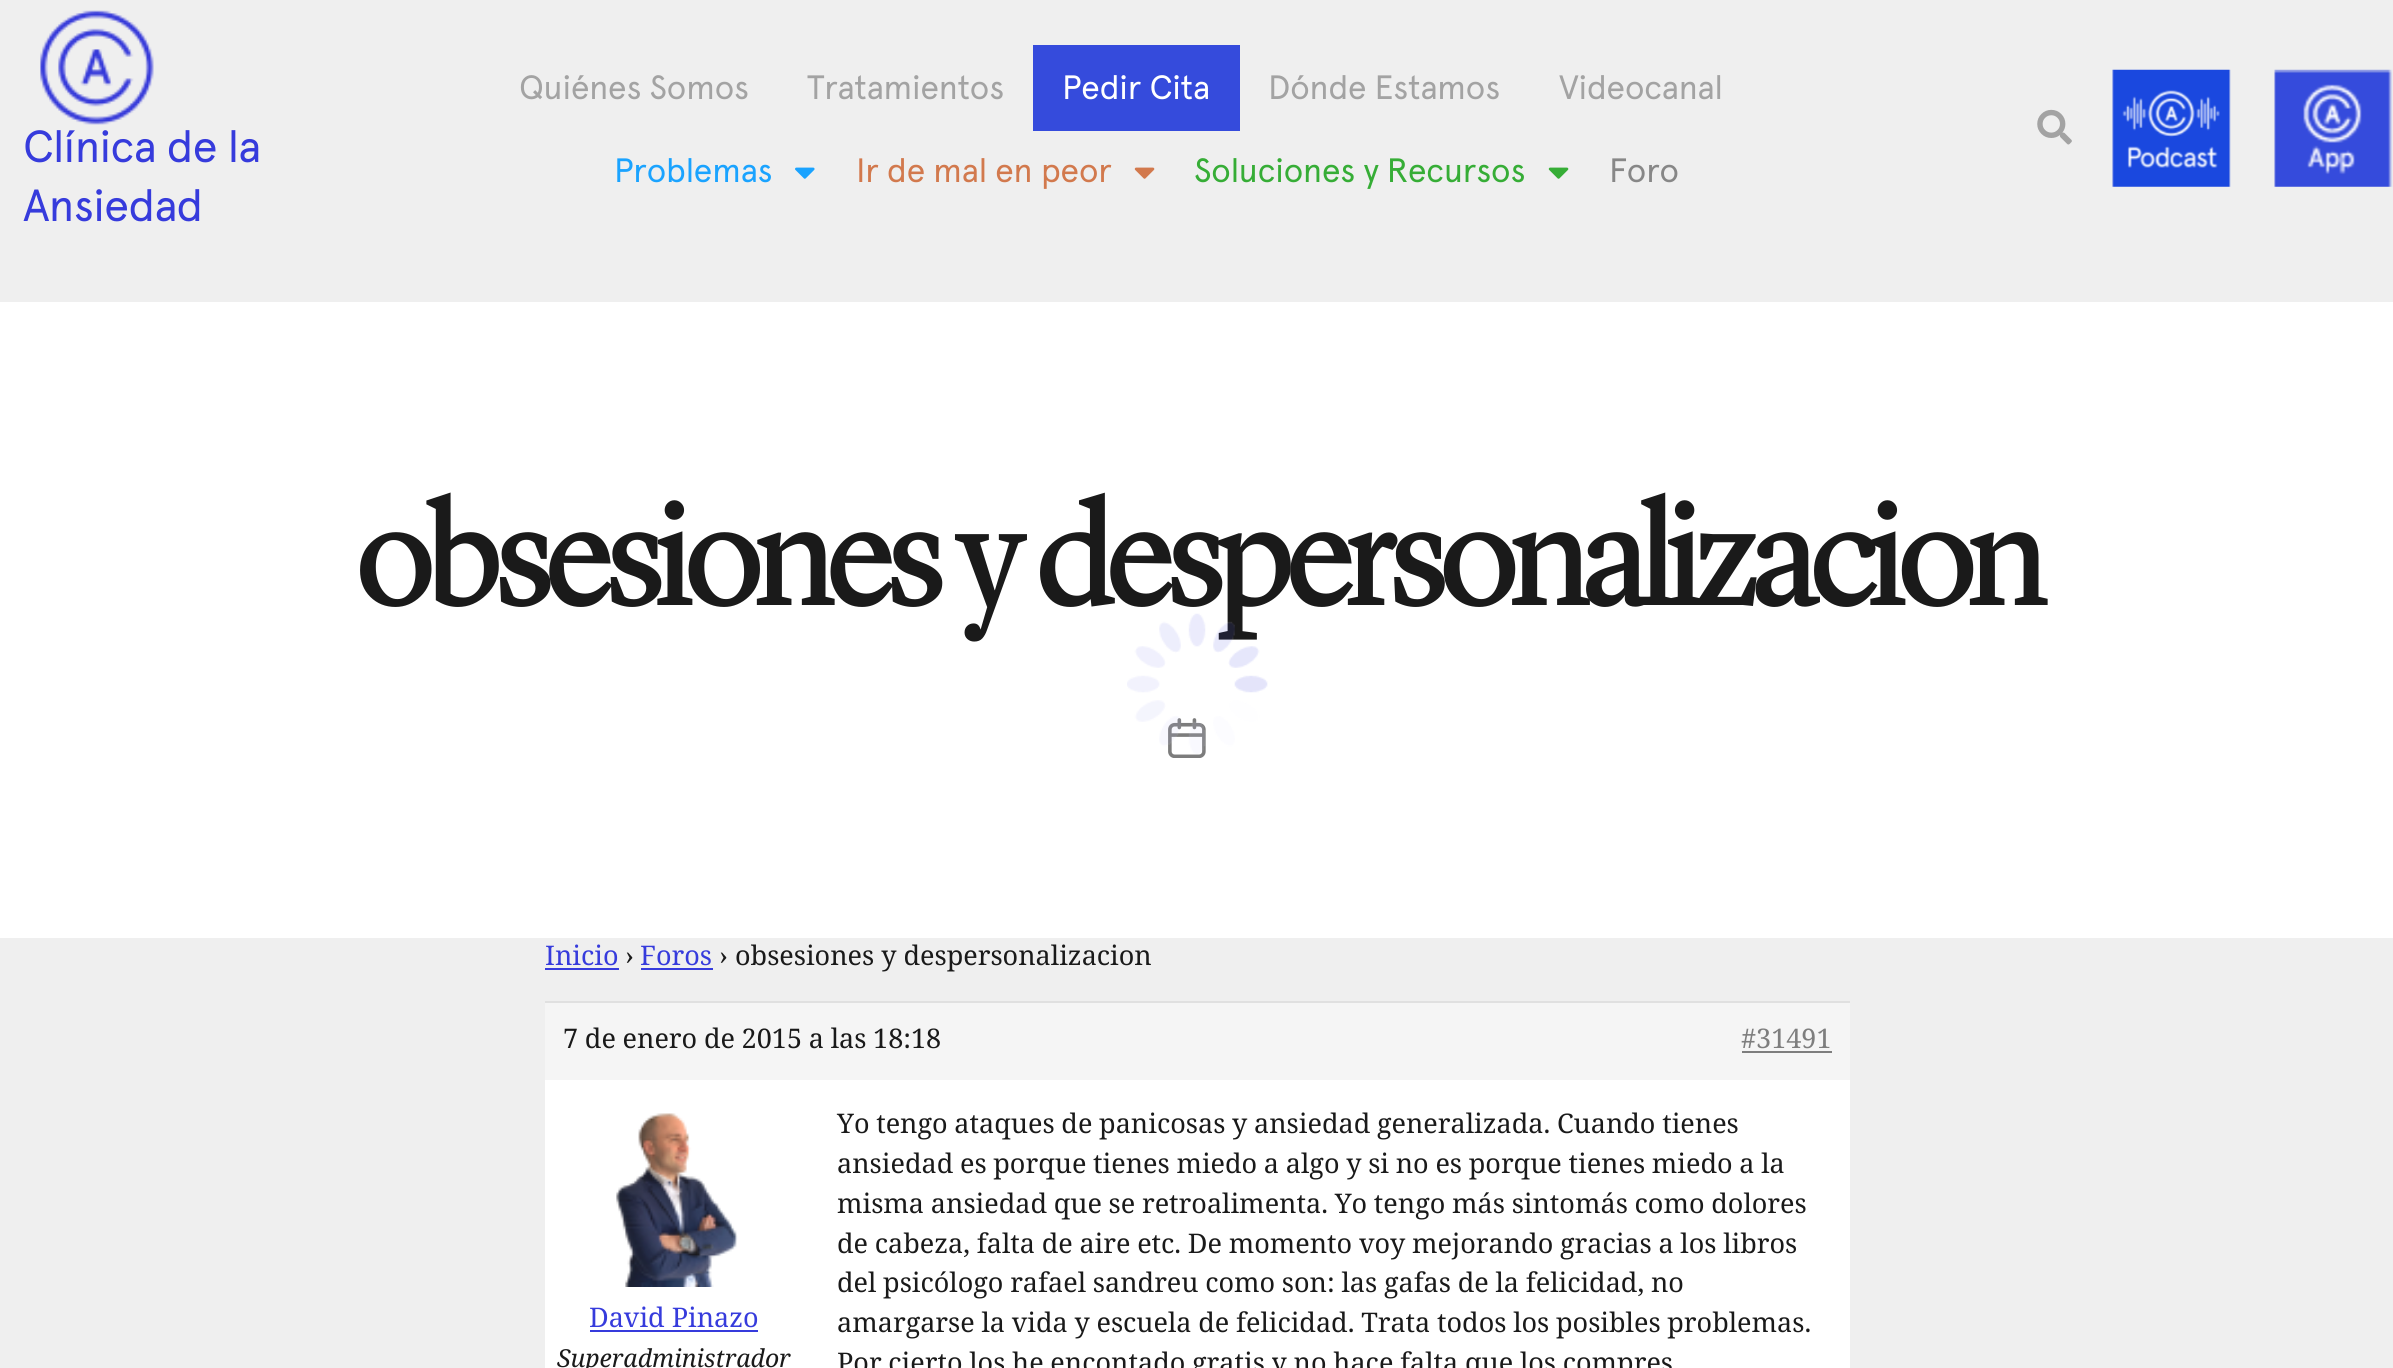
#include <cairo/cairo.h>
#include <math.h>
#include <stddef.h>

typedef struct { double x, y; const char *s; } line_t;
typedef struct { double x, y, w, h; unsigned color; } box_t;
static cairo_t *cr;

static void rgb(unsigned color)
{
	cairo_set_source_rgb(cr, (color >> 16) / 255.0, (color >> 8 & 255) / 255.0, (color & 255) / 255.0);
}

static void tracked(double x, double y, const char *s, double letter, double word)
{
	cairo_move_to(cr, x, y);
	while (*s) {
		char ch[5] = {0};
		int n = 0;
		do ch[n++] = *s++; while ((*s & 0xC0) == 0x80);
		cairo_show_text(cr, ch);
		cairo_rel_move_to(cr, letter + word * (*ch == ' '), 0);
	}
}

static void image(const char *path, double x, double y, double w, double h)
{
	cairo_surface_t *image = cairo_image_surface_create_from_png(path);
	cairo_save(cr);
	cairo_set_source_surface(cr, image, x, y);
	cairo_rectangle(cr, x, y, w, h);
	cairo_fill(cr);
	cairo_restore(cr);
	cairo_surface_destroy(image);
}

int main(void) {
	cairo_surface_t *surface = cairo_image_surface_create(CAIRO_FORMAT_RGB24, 2393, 1368);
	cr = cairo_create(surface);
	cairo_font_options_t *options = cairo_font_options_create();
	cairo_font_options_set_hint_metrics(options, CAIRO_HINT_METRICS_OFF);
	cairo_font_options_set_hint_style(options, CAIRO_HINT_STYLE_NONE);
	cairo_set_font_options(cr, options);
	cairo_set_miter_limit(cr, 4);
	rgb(0xefefef);
	cairo_paint(cr);
	image("img/1.png", 40, 10, 114, 115);
	rgb(0x354bdc);
	cairo_rectangle(cr, 1033, 45, 207, 86);
	cairo_fill(cr);
	image("img/2.png", 795, 167, 20, 12);
	image("img/3.png", 1134, 167, 21, 12);
	image("img/4.png", 1548, 167, 21, 12);
	image("img/5.png", 2037, 109, 35, 36);
	image("img/6.png", 2112, 69, 119, 118);
	image("img/7.png", 2274, 69, 119, 118);
	rgb(0xffffff);
	cairo_rectangle(cr, 0, 302, 2393, 636);
	cairo_fill(cr);
	image("img/8.png", 1168, 718, 38, 40);
	{
		static const box_t items[] = {
			{545, 968, 74, 2, 0x363bdc},
			{641, 968, 72, 2, 0x363bdc},
			{545, 1003, 1305, 77, 0xf5f5f5},
			{545, 1001, 1305, 2, 0xe0e0e0},
			{1742, 1051, 90, 2, 0x7e7e7e},
			{545, 1080, 1305, 288, 0xffffff},
		};
		for (size_t i = 0; i < sizeof items / sizeof *items; i++) {
			rgb(items[i].color);
			cairo_rectangle(cr, items[i].x, items[i].y, items[i].w, items[i].h);
			cairo_fill(cr);
		}
	}
	image("img/9.png", 616, 1113, 122, 174);
	rgb(0x363bdc);
	cairo_rectangle(cr, 590, 1330, 168, 2);
	cairo_fill(cr);
	cairo_select_font_face(cr, "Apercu", CAIRO_FONT_SLANT_NORMAL, CAIRO_FONT_WEIGHT_NORMAL);
	cairo_set_font_size(cr, 45);
	tracked(23, 162, "Clínica de la", -1.1, 0);
	tracked(23, 221, "Ansiedad", -1.1, 0);
	cairo_set_font_size(cr, 33.75);
	rgb(0xa3a3a3);
	tracked(519, 99, "Quiénes Somos", -0.6, 0);
	tracked(807, 99, "Tratamientos", -0.6, 0);
	rgb(0xffffff);
	tracked(1062, 99, "Pedir Cita", -0.6, 0);
	rgb(0xa3a3a3);
	tracked(1268, 99, "Dónde Estamos", -0.6, 0);
	tracked(1559, 99, "Videocanal", -0.6, 0);
	rgb(0x1aa3ff);
	tracked(614, 182, "Problemas", -0.6, 0);
	rgb(0xd2794d);
	tracked(856, 182, "Ir de mal en peor", -0.6, 0);
	rgb(0x36ad36);
	tracked(1194, 182, "Soluciones y Recursos", -0.6, 0);
	rgb(0x878787);
	tracked(1609, 182, "Foro", -0.6, 0);
	cairo_select_font_face(cr, "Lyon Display", CAIRO_FONT_SLANT_NORMAL, CAIRO_FONT_WEIGHT_BOLD);
	cairo_set_font_size(cr, 144);
	rgb(0x1a1a1a);
	tracked(355, 605, "obsesiones y despersonalizacion", -6, 0);
	cairo_select_font_face(cr, "Noto Serif", CAIRO_FONT_SLANT_NORMAL, CAIRO_FONT_WEIGHT_NORMAL);
	cairo_set_font_size(cr, 27);
	rgb(0x363bdc);
	cairo_move_to(cr, 545, 965);
	cairo_show_text(cr, "Inicio");
	rgb(0x1a1a1a);
	cairo_move_to(cr, 625, 965);
	cairo_show_text(cr, "›");
	rgb(0x363bdc);
	cairo_move_to(cr, 640, 965);
	cairo_show_text(cr, "Foros");
	rgb(0x1a1a1a);
	cairo_move_to(cr, 719, 965);
	cairo_show_text(cr, "›");
	cairo_move_to(cr, 735, 965);
	cairo_show_text(cr, "obsesiones y despersonalizacion");
	tracked(563, 1048, "7 de enero de 2015 a las 18:18", 0, -0.3);
	rgb(0x7e7e7e);
	cairo_move_to(cr, 1741, 1048);
	cairo_show_text(cr, "#31491");
	rgb(0x363bdc);
	cairo_move_to(cr, 589, 1327);
	cairo_show_text(cr, "David Pinazo");
	cairo_select_font_face(cr, "Noto Serif", CAIRO_FONT_SLANT_ITALIC, CAIRO_FONT_WEIGHT_NORMAL);
	cairo_set_font_size(cr, 24.75);
	rgb(0x1a1a1a);
	cairo_move_to(cr, 557, 1367);
	cairo_show_text(cr, "Superadministrador");
	cairo_select_font_face(cr, "Noto Serif", CAIRO_FONT_SLANT_NORMAL, CAIRO_FONT_WEIGHT_NORMAL);
	cairo_set_font_size(cr, 27);
	{
		static const line_t items[] = {
			{837, 1133, "Yo tengo ataques de panicosas y ansiedad generalizada. Cuando tienes"},
			{837, 1173, "ansiedad es porque tienes miedo a algo y si no es porque tienes miedo a la"},
			{837, 1213, "misma ansiedad que se retroalimenta. Yo tengo más sintomás como dolores"},
			{837, 1253, "de cabeza, falta de aire etc. De momento voy mejorando gracias a los libros"},
			{837, 1292, "del psicólogo rafael sandreu como son: las gafas de la felicidad, no"},
			{837, 1332, "amargarse la vida y escuela de felicidad. Trata todos los posibles problemas."},
			{837, 1372, "Por cierto los he encontado gratis y no hace falta que los compres"},
		};
		for (size_t i = 0; i < sizeof items / sizeof *items; i++) {
			tracked(items[i].x, items[i].y, items[i].s, 0, -0.3);
		}
	}
	image("img/10.png", 1127, 613, 141, 141);
	cairo_surface_write_to_png(surface, "page.png");
	cairo_font_options_destroy(options);
	cairo_destroy(cr);
	cairo_surface_destroy(surface);
	return 0;
}
